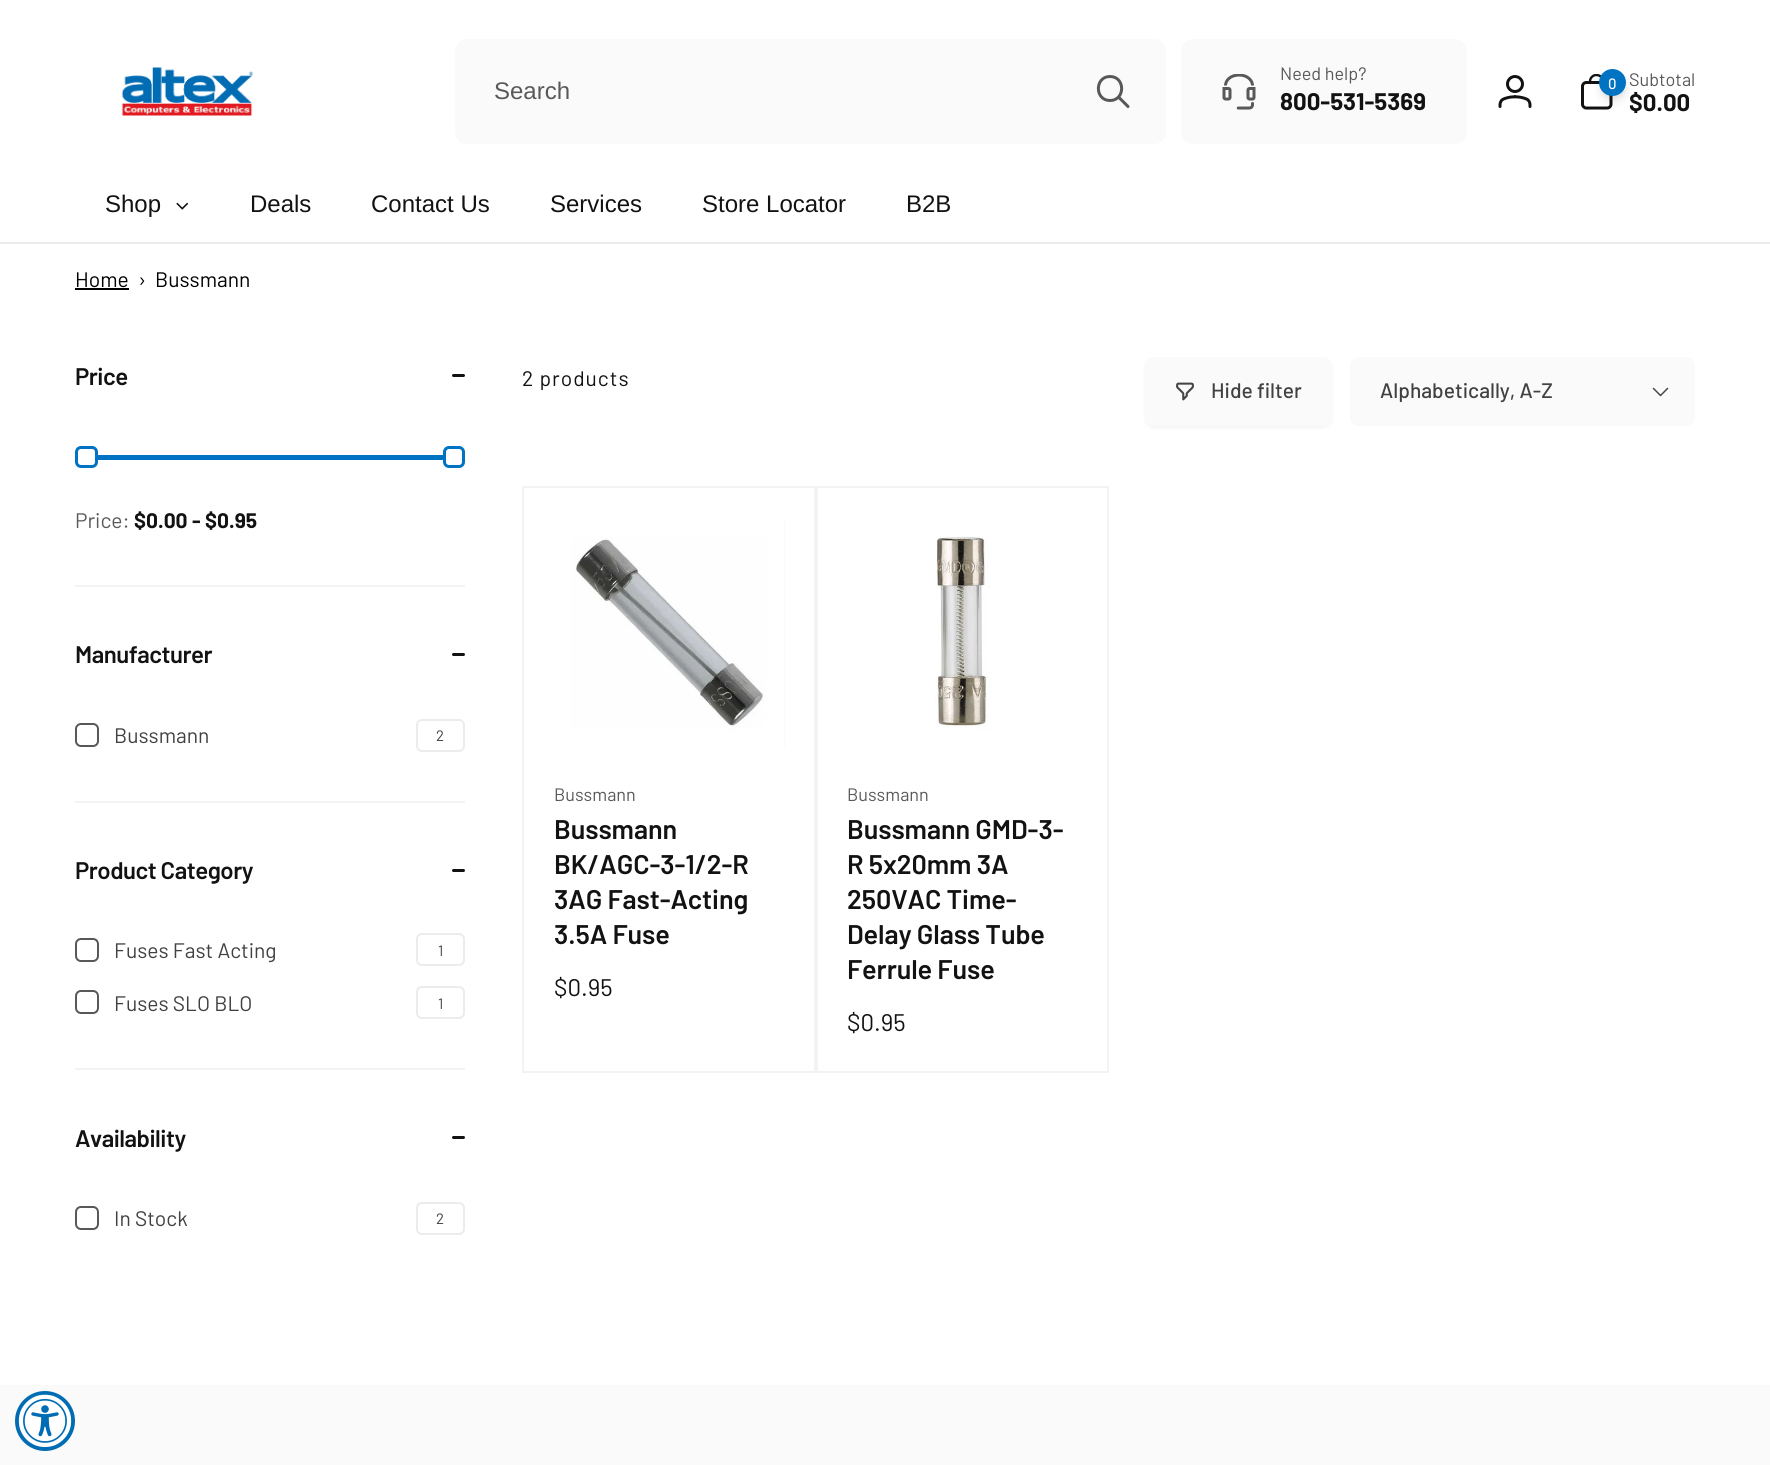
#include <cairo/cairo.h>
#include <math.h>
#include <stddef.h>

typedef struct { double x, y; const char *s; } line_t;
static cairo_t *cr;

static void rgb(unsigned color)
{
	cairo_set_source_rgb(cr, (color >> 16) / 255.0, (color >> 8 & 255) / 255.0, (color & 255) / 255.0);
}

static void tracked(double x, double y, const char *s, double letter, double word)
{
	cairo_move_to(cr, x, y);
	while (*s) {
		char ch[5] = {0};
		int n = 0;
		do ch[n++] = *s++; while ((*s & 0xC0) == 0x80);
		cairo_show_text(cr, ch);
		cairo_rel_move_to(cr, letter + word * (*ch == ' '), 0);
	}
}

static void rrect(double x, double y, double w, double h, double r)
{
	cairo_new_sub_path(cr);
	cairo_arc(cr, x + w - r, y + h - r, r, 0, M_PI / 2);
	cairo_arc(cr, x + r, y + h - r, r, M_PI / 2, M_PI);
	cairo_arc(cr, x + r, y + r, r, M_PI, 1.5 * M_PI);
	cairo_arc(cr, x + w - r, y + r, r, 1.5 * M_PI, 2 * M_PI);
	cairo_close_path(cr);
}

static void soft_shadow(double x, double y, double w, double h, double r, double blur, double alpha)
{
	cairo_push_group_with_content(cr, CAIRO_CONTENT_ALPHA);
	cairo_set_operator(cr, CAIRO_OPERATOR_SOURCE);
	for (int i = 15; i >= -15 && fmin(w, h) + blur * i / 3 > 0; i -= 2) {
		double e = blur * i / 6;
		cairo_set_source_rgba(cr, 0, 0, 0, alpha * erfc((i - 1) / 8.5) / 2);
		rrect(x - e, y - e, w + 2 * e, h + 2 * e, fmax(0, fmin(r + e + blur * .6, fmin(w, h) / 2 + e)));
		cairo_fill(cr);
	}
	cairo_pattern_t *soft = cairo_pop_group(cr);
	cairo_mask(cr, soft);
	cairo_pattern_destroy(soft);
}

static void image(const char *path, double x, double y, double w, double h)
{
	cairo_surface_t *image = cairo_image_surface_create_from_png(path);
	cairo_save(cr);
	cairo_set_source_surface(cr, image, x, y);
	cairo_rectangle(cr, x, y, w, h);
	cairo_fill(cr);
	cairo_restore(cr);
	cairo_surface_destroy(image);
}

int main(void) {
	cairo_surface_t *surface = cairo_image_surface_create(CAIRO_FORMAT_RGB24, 1770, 1465);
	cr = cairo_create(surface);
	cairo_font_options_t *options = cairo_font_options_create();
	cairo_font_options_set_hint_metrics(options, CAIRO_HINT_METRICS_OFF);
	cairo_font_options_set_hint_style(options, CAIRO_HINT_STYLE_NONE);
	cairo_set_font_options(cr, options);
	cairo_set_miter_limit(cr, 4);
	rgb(0xffffff);
	cairo_paint(cr);
	rgb(0xececec);
	cairo_rectangle(cr, 0, 242, 1770, 2);
	cairo_fill(cr);
	image("img/1.png", 121, 67, 133, 49);
	rgb(0xfafafa);
	rrect(455, 39, 711, 105, 12);
	cairo_fill(cr);
	cairo_new_path(cr);
	cairo_move_to(cr, 1128, 106.5);
	cairo_line_to(cr, 1118.5, 97);
	cairo_move_to(cr, 1110, 100.5);
	cairo_curve_to(cr, 1125.5, 100.5, 1125.5, 76.5, 1110, 76.5);
	cairo_curve_to(cr, 1094.5, 76.5, 1094.5, 100.5, 1110, 100.5);
	cairo_close_path(cr);
	rgb(0x585858);
	cairo_set_line_width(cr, 3);
	cairo_set_line_cap(cr, CAIRO_LINE_CAP_ROUND);
	cairo_set_line_join(cr, CAIRO_LINE_JOIN_ROUND);
	cairo_stroke(cr);
	rgb(0xfafafa);
	rrect(1181, 39, 286, 105, 12);
	cairo_fill(cr);
	image("img/2.png", 1222, 74, 34, 36);
	image("img/3.png", 1498, 75, 34, 33);
	image("img/4.png", 1581, 74, 32, 36);
	rgb(0x121212);
	soft_shadow(1601, 74, 24, 24, 12, 3, 0.06);
	soft_shadow(1601, 77, 24, 24, 12, 4.5, 0.1);
	rgb(0x0074c2);
	cairo_arc(cr, 1612.5, 82.5, 13.5, 0, 2 * M_PI);
	cairo_fill(cr);
	image("img/5.png", 176, 202, 12, 8);
	rgb(0x000000);
	cairo_rectangle(cr, 75, 288, 54, 2);
	cairo_fill(cr);
	rgb(0x121212);
	rrect(452, 374, 13, 3, 1.5);
	cairo_fill(cr);
	rrect(76.5, 447.5, 20, 19, 4.5);
	rgb(0x0074c2);
	cairo_set_line_cap(cr, CAIRO_LINE_CAP_BUTT);
	cairo_set_line_join(cr, CAIRO_LINE_JOIN_MITER);
	cairo_stroke(cr);
	cairo_rectangle(cr, 98, 455, 345, 5);
	cairo_fill(cr);
	rrect(444.5, 447.5, 19, 19, 4.5);
	cairo_stroke(cr);
	rgb(0xf3f3f3);
	cairo_rectangle(cr, 75, 585, 390, 2);
	cairo_fill(cr);
	rgb(0x121212);
	rrect(452, 653, 13, 3, 1.5);
	cairo_fill(cr);
	rrect(78, 726, 19, 19, 2);
	rgb(0x767676);
	cairo_set_line_width(cr, 2);
	cairo_stroke(cr);
	rgb(0xffffff);
	rrect(75, 723, 24, 24, 6);
	cairo_fill(cr);
	rrect(76, 724, 22, 22, 5);
	cairo_set_source_rgba(cr, 0.071, 0.071, 0.071, 0.7);
	cairo_stroke(cr);
	rrect(417, 720, 47, 31, 5);
	rgb(0xececec);
	cairo_stroke(cr);
	rgb(0xf3f3f3);
	cairo_rectangle(cr, 75, 801, 390, 2);
	cairo_fill(cr);
	rgb(0x121212);
	rrect(452, 869, 13, 3, 1.5);
	cairo_fill(cr);
	rrect(78, 940, 19, 19, 2);
	rgb(0x767676);
	cairo_stroke(cr);
	rgb(0xffffff);
	rrect(75, 938, 24, 24, 6);
	cairo_fill(cr);
	rrect(76, 939, 22, 22, 5);
	cairo_set_source_rgba(cr, 0.071, 0.071, 0.071, 0.7);
	cairo_stroke(cr);
	rrect(417, 934, 47, 31, 5);
	rgb(0xececec);
	cairo_stroke(cr);
	rrect(78, 993, 19, 19, 2);
	rgb(0x767676);
	cairo_stroke(cr);
	rgb(0xffffff);
	rrect(75, 990, 24, 24, 6);
	cairo_fill(cr);
	rrect(76, 991, 22, 22, 5);
	cairo_set_source_rgba(cr, 0.071, 0.071, 0.071, 0.7);
	cairo_stroke(cr);
	rrect(417, 987, 47, 31, 5);
	rgb(0xececec);
	cairo_stroke(cr);
	rgb(0xf3f3f3);
	cairo_rectangle(cr, 75, 1068, 390, 2);
	cairo_fill(cr);
	rgb(0x121212);
	rrect(452, 1136, 13, 3, 1.5);
	cairo_fill(cr);
	rrect(78, 1209, 19, 19, 2);
	rgb(0x767676);
	cairo_stroke(cr);
	rgb(0xffffff);
	rrect(75, 1206, 24, 24, 6);
	cairo_fill(cr);
	rrect(76, 1207, 22, 22, 5);
	cairo_set_source_rgba(cr, 0.071, 0.071, 0.071, 0.7);
	cairo_stroke(cr);
	rrect(417, 1203, 47, 31, 5);
	rgb(0xececec);
	cairo_stroke(cr);
	rgb(0x121212);
	soft_shadow(1145, 359, 187, 69, 9, 1.5, 0.05);
	rgb(0xfafafa);
	rrect(1145, 357, 187, 69, 9);
	cairo_fill(cr);
	image("img/6.png", 1176, 382, 18, 19);
	rrect(1350, 357, 345, 69, 9);
	cairo_fill(cr);
	cairo_new_path(cr);
	cairo_move_to(cr, 1667.5, 388.5);
	cairo_line_to(cr, 1660.5, 395.5);
	cairo_line_to(cr, 1653.5, 388.5);
	rgb(0x454545);
	cairo_set_line_width(cr, 1.5);
	cairo_set_line_cap(cr, CAIRO_LINE_CAP_ROUND);
	cairo_set_line_join(cr, CAIRO_LINE_JOIN_ROUND);
	cairo_stroke(cr);
	cairo_rectangle(cr, 523, 487, 292, 585);
	rgb(0xf3f3f3);
	cairo_set_line_width(cr, 2);
	cairo_set_line_cap(cr, CAIRO_LINE_CAP_BUTT);
	cairo_set_line_join(cr, CAIRO_LINE_JOIN_MITER);
	cairo_stroke(cr);
	rgb(0xfafafa);
	cairo_rectangle(cr, 784, 518, 1, 229);
	cairo_fill(cr);
	image("img/7.png", 554, 518, 230, 229);
	cairo_rectangle(cr, 817, 487, 291, 585);
	rgb(0xf3f3f3);
	cairo_stroke(cr);
	image("img/8.png", 848, 518, 229, 229);
	rgb(0xfafafa);
	cairo_rectangle(cr, 0, 1385, 1770, 80);
	cairo_fill(cr);
	rgb(0x006cb4);
	cairo_arc(cr, 45, 1421, 30, 0, 2 * M_PI);
	cairo_fill(cr);
	image("img/9.png", 18, 1394, 54, 53);
	cairo_select_font_face(cr, "Liberation Sans", CAIRO_FONT_SLANT_NORMAL, CAIRO_FONT_WEIGHT_NORMAL);
	cairo_set_font_size(cr, 24);
	rgb(0x595959);
	cairo_move_to(cr, 494, 99);
	cairo_show_text(cr, "Search");
	cairo_select_font_face(cr, "Barlow", CAIRO_FONT_SLANT_NORMAL, CAIRO_FONT_WEIGHT_NORMAL);
	cairo_set_font_size(cr, 18);
	cairo_move_to(cr, 1280, 80);
	cairo_show_text(cr, "Need help?");
	cairo_select_font_face(cr, "Barlow", CAIRO_FONT_SLANT_NORMAL, CAIRO_FONT_WEIGHT_BOLD);
	cairo_set_font_size(cr, 24);
	rgb(0x121212);
	cairo_move_to(cr, 1280, 110);
	cairo_show_text(cr, "800-531-5369");
	cairo_select_font_face(cr, "Barlow Medium", CAIRO_FONT_SLANT_NORMAL, CAIRO_FONT_WEIGHT_NORMAL);
	cairo_set_font_size(cr, 15);
	rgb(0xffffff);
	cairo_move_to(cr, 1608, 89);
	cairo_show_text(cr, "0");
	cairo_select_font_face(cr, "Barlow", CAIRO_FONT_SLANT_NORMAL, CAIRO_FONT_WEIGHT_NORMAL);
	cairo_set_font_size(cr, 18);
	rgb(0x595959);
	cairo_move_to(cr, 1629, 86);
	cairo_show_text(cr, "Subtotal");
	cairo_select_font_face(cr, "Barlow", CAIRO_FONT_SLANT_NORMAL, CAIRO_FONT_WEIGHT_BOLD);
	cairo_set_font_size(cr, 24);
	rgb(0x121212);
	cairo_move_to(cr, 1629, 111);
	cairo_show_text(cr, "$0.00");
	cairo_select_font_face(cr, "Liberation Sans", CAIRO_FONT_SLANT_NORMAL, CAIRO_FONT_WEIGHT_NORMAL);
	{
		static const line_t items[] = {
			{105, 212, "Shop"},
			{250, 212, "Deals"},
			{371, 212, "Contact Us"},
			{550, 212, "Services"},
			{702, 212, "Store Locator"},
			{906, 212, "B2B"},
		};
		for (size_t i = 0; i < sizeof items / sizeof *items; i++) {
			cairo_move_to(cr, items[i].x, items[i].y);
			cairo_show_text(cr, items[i].s);
		}
	}
	cairo_select_font_face(cr, "Barlow", CAIRO_FONT_SLANT_NORMAL, CAIRO_FONT_WEIGHT_NORMAL);
	cairo_set_font_size(cr, 21);
	rgb(0x000000);
	{
		static const line_t items[] = {
			{75, 287, "Home"},
			{138, 287, "›"},
			{155, 287, "Bussmann"},
		};
		for (size_t i = 0; i < sizeof items / sizeof *items; i++) {
			cairo_move_to(cr, items[i].x, items[i].y);
			cairo_show_text(cr, items[i].s);
		}
	}
	cairo_select_font_face(cr, "Barlow SemiBold", CAIRO_FONT_SLANT_NORMAL, CAIRO_FONT_WEIGHT_NORMAL);
	cairo_set_font_size(cr, 24);
	rgb(0x121212);
	tracked(75, 385, "Price", -0.5, 0);
	cairo_select_font_face(cr, "Barlow", CAIRO_FONT_SLANT_NORMAL, CAIRO_FONT_WEIGHT_NORMAL);
	cairo_set_font_size(cr, 21);
	rgb(0x595959);
	cairo_move_to(cr, 75, 528);
	cairo_show_text(cr, "Price:");
	cairo_select_font_face(cr, "Barlow", CAIRO_FONT_SLANT_NORMAL, CAIRO_FONT_WEIGHT_BOLD);
	rgb(0x121212);
	{
		static const line_t items[] = {
			{134, 528, "$0.00"},
			{192, 528, "-"},
			{205, 528, "$0.95"},
		};
		for (size_t i = 0; i < sizeof items / sizeof *items; i++) {
			cairo_move_to(cr, items[i].x, items[i].y);
			cairo_show_text(cr, items[i].s);
		}
	}
	cairo_select_font_face(cr, "Barlow SemiBold", CAIRO_FONT_SLANT_NORMAL, CAIRO_FONT_WEIGHT_NORMAL);
	cairo_set_font_size(cr, 24);
	tracked(75, 663, "Manufacturer", -0.5, 0);
	cairo_select_font_face(cr, "Barlow", CAIRO_FONT_SLANT_NORMAL, CAIRO_FONT_WEIGHT_NORMAL);
	cairo_set_font_size(cr, 21);
	rgb(0x414141);
	cairo_move_to(cr, 114, 743);
	cairo_show_text(cr, "Bussmann");
	cairo_set_font_size(cr, 15);
	cairo_move_to(cr, 436, 741);
	cairo_show_text(cr, "2");
	cairo_select_font_face(cr, "Barlow SemiBold", CAIRO_FONT_SLANT_NORMAL, CAIRO_FONT_WEIGHT_NORMAL);
	cairo_set_font_size(cr, 24);
	rgb(0x121212);
	tracked(75, 879, "Product Category", -0.5, 0);
	cairo_select_font_face(cr, "Barlow", CAIRO_FONT_SLANT_NORMAL, CAIRO_FONT_WEIGHT_NORMAL);
	cairo_set_font_size(cr, 21);
	rgb(0x414141);
	cairo_move_to(cr, 114, 958);
	cairo_show_text(cr, "Fuses Fast Acting");
	cairo_set_font_size(cr, 15);
	cairo_move_to(cr, 438, 956);
	cairo_show_text(cr, "1");
	cairo_set_font_size(cr, 21);
	cairo_move_to(cr, 114, 1011);
	cairo_show_text(cr, "Fuses SLO BLO");
	cairo_set_font_size(cr, 15);
	cairo_move_to(cr, 438, 1009);
	cairo_show_text(cr, "1");
	cairo_select_font_face(cr, "Barlow SemiBold", CAIRO_FONT_SLANT_NORMAL, CAIRO_FONT_WEIGHT_NORMAL);
	cairo_set_font_size(cr, 24);
	rgb(0x121212);
	tracked(75, 1147, "Availability", -0.5, 0);
	cairo_select_font_face(cr, "Barlow", CAIRO_FONT_SLANT_NORMAL, CAIRO_FONT_WEIGHT_NORMAL);
	cairo_set_font_size(cr, 21);
	rgb(0x414141);
	cairo_move_to(cr, 114, 1226);
	cairo_show_text(cr, "In Stock");
	cairo_set_font_size(cr, 15);
	cairo_move_to(cr, 436, 1224);
	cairo_show_text(cr, "2");
	cairo_set_font_size(cr, 21);
	rgb(0x121212);
	tracked(522, 386, "2 products", 1, 0);
	cairo_select_font_face(cr, "Barlow Medium", CAIRO_FONT_SLANT_NORMAL, CAIRO_FONT_WEIGHT_NORMAL);
	rgb(0x414141);
	cairo_move_to(cr, 1211, 398);
	cairo_show_text(cr, "Hide filter");
	cairo_move_to(cr, 1380, 398);
	cairo_show_text(cr, "Alphabetically, A-Z");
	cairo_select_font_face(cr, "Barlow", CAIRO_FONT_SLANT_NORMAL, CAIRO_FONT_WEIGHT_NORMAL);
	cairo_set_font_size(cr, 18);
	rgb(0x595959);
	cairo_move_to(cr, 554, 801);
	cairo_show_text(cr, "Bussmann");
	cairo_select_font_face(cr, "Barlow SemiBold", CAIRO_FONT_SLANT_NORMAL, CAIRO_FONT_WEIGHT_NORMAL);
	cairo_set_font_size(cr, 27);
	rgb(0x121212);
	{
		static const line_t items[] = {
			{554, 839, "Bussmann"},
			{554, 874, "BK/AGC-3-1/2-R"},
			{554, 909, "3AG Fast-Acting"},
			{554, 944, "3.5A Fuse"},
		};
		for (size_t i = 0; i < sizeof items / sizeof *items; i++) {
			tracked(items[i].x, items[i].y, items[i].s, -0.1, 0);
		}
	}
	cairo_select_font_face(cr, "Barlow", CAIRO_FONT_SLANT_NORMAL, CAIRO_FONT_WEIGHT_NORMAL);
	cairo_set_font_size(cr, 24);
	cairo_move_to(cr, 554, 996);
	cairo_show_text(cr, "$0.95");
	cairo_set_font_size(cr, 18);
	rgb(0x595959);
	cairo_move_to(cr, 847, 801);
	cairo_show_text(cr, "Bussmann");
	cairo_select_font_face(cr, "Barlow SemiBold", CAIRO_FONT_SLANT_NORMAL, CAIRO_FONT_WEIGHT_NORMAL);
	cairo_set_font_size(cr, 27);
	rgb(0x121212);
	{
		static const line_t items[] = {
			{847, 839, "Bussmann GMD-3-"},
			{847, 874, "R 5x20mm 3A"},
			{847, 909, "250VAC Time-"},
			{847, 944, "Delay Glass Tube"},
			{847, 979, "Ferrule Fuse"},
		};
		for (size_t i = 0; i < sizeof items / sizeof *items; i++) {
			tracked(items[i].x, items[i].y, items[i].s, -0.1, 0);
		}
	}
	cairo_select_font_face(cr, "Barlow", CAIRO_FONT_SLANT_NORMAL, CAIRO_FONT_WEIGHT_NORMAL);
	cairo_set_font_size(cr, 24);
	cairo_move_to(cr, 847, 1031);
	cairo_show_text(cr, "$0.95");
	cairo_surface_write_to_png(surface, "page.png");
	cairo_font_options_destroy(options);
	cairo_destroy(cr);
	cairo_surface_destroy(surface);
	return 0;
}
